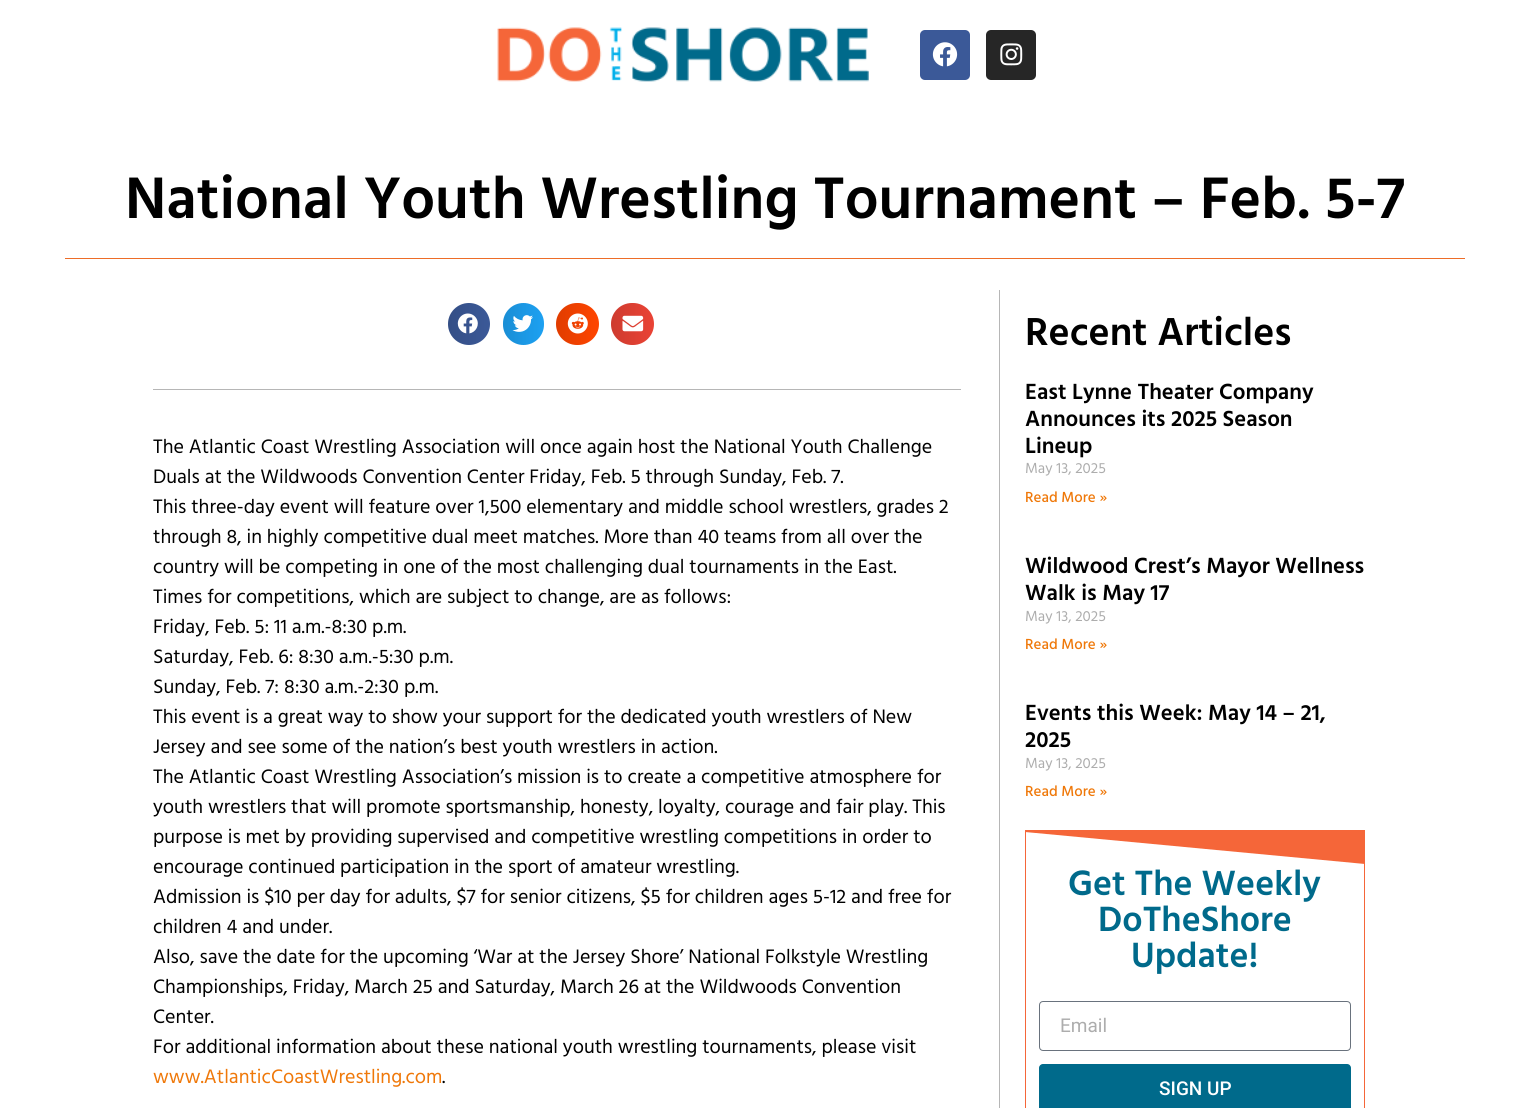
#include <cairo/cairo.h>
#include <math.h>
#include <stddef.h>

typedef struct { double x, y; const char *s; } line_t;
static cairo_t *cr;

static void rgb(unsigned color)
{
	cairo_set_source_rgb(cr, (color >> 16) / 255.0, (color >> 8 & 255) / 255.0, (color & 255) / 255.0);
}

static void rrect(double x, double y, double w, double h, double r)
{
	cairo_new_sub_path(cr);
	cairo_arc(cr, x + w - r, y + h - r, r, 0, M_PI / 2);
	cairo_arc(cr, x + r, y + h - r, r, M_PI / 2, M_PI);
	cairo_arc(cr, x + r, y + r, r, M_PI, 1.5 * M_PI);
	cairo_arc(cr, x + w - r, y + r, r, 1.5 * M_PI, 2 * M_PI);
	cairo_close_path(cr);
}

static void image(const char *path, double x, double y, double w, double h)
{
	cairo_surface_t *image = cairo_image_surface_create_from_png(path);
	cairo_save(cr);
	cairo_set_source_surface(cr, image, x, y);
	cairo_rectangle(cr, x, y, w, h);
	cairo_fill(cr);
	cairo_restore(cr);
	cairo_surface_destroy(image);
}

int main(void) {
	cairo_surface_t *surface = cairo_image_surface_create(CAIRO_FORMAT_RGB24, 1529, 1108);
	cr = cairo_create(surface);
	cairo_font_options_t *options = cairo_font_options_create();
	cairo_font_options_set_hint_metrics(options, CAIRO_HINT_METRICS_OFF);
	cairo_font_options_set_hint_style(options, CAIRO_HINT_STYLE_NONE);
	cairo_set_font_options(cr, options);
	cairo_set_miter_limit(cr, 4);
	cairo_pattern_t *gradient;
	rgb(0xffffff);
	cairo_paint(cr);
	image("img/1.png", 497, 27, 372, 55);
	rgb(0x3b5998);
	rrect(920, 30, 50, 50, 5);
	cairo_fill(cr);
	image("img/2.png", 932, 42, 26, 25);
	rgb(0x262626);
	rrect(986, 30, 50, 50, 5);
	cairo_fill(cr);
	image("img/3.png", 1000, 43, 23, 23);
	rgb(0xed6d28);
	cairo_rectangle(cr, 65, 258, 1400, 1);
	cairo_fill(cr);
	rgb(0x3b5998);
	cairo_arc(cr, 469, 324, 21, 0, 2 * M_PI);
	cairo_fill(cr);
	gradient = cairo_pattern_create_linear(448, 324, 490, 324);
	cairo_pattern_add_color_stop_rgba(gradient, 0, 0, 0, 0, 0.12);
	cairo_pattern_add_color_stop_rgba(gradient, 1, 0, 0, 0, 0);
	cairo_set_source(cr, gradient);
	cairo_pattern_destroy(gradient);
	cairo_arc(cr, 469, 324, 21, 0, 2 * M_PI);
	cairo_fill(cr);
	image("img/4.png", 457, 313, 21, 21);
	rgb(0x1da1f2);
	rrect(503, 303, 41, 42, 20.5);
	cairo_fill(cr);
	gradient = cairo_pattern_create_linear(503, 324, 544, 324);
	cairo_pattern_add_color_stop_rgba(gradient, 0, 0, 0, 0, 0.12);
	cairo_pattern_add_color_stop_rgba(gradient, 1, 0, 0, 0, 0);
	cairo_set_source(cr, gradient);
	cairo_pattern_destroy(gradient);
	rrect(503, 303, 41, 42, 20.5);
	cairo_fill(cr);
	image("img/5.png", 512, 315, 21, 17);
	rgb(0xff4500);
	rrect(556, 303, 43, 42, 21);
	cairo_fill(cr);
	gradient = cairo_pattern_create_linear(556, 324, 599, 324);
	cairo_pattern_add_color_stop_rgba(gradient, 0, 0, 0, 0, 0.12);
	cairo_pattern_add_color_stop_rgba(gradient, 1, 0, 0, 0, 0);
	cairo_set_source(cr, gradient);
	cairo_pattern_destroy(gradient);
	rrect(556, 303, 43, 42, 21);
	cairo_fill(cr);
	image("img/6.png", 567, 313, 21, 21);
	rgb(0xea4335);
	rrect(611, 303, 43, 42, 21);
	cairo_fill(cr);
	gradient = cairo_pattern_create_linear(611, 324, 654, 324);
	cairo_pattern_add_color_stop_rgba(gradient, 0, 0, 0, 0, 0.12);
	cairo_pattern_add_color_stop_rgba(gradient, 1, 0, 0, 0, 0);
	cairo_set_source(cr, gradient);
	cairo_pattern_destroy(gradient);
	rrect(611, 303, 43, 42, 21);
	cairo_fill(cr);
	image("img/7.png", 622, 315, 22, 17);
	rgb(0xb6b6b6);
	cairo_rectangle(cr, 153, 389, 808, 1);
	cairo_fill(cr);
	cairo_rectangle(cr, 999, 290, 1, 818);
	cairo_fill(cr);
	cairo_rectangle(cr, 1025.5, 830.5, 339, 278);
	rgb(0xf56639);
	cairo_set_line_width(cr, 1);
	cairo_stroke(cr);
	cairo_save(cr);
	cairo_rectangle(cr, 1026, 830, 338, 34);
	cairo_clip(cr);
	cairo_new_path(cr);
	cairo_move_to(cr, 1025, 832);
	cairo_line_to(cr, 1025, 830);
	cairo_line_to(cr, 1365, 830);
	cairo_line_to(cr, 1365, 864);
	cairo_close_path(cr);
	cairo_fill(cr);
	cairo_restore(cr);
	rrect(1039.5, 1001.5, 311, 49, 3.5);
	rgb(0x69727d);
	cairo_stroke(cr);
	rgb(0x006a8b);
	rrect(1039, 1064, 312, 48, 4);
	cairo_fill(cr);
	cairo_select_font_face(cr, "Hind SemiBold", CAIRO_FONT_SLANT_NORMAL, CAIRO_FONT_WEIGHT_NORMAL);
	cairo_set_font_size(cr, 60);
	rgb(0x000000);
	cairo_move_to(cr, 125, 218);
	cairo_show_text(cr, "National Youth Wrestling Tournament – Feb. 5-7");
	cairo_select_font_face(cr, "Hind", CAIRO_FONT_SLANT_NORMAL, CAIRO_FONT_WEIGHT_NORMAL);
	cairo_set_font_size(cr, 20);
	{
		static const line_t items[] = {
			{153, 453, "The Atlantic Coast Wrestling Association will once again host the National Youth Challenge"},
			{153, 483, "Duals at the Wildwoods Convention Center Friday, Feb. 5 through Sunday, Feb. 7."},
			{153, 513, "This three-day event will feature over 1,500 elementary and middle school wrestlers, grades 2"},
			{153, 543, "through 8, in highly competitive dual meet matches. More than 40 teams from all over the"},
			{153, 573, "country will be competing in one of the most challenging dual tournaments in the East."},
			{153, 603, "Times for competitions, which are subject to change, are as follows:"},
			{153, 633, "Friday, Feb. 5: 11 a.m.-8:30 p.m."},
			{153, 663, "Saturday, Feb. 6: 8:30 a.m.-5:30 p.m."},
			{153, 693, "Sunday, Feb. 7: 8:30 a.m.-2:30 p.m."},
			{153, 723, "This event is a great way to show your support for the dedicated youth wrestlers of New"},
			{153, 753, "Jersey and see some of the nation’s best youth wrestlers in action."},
			{153, 783, "The Atlantic Coast Wrestling Association’s mission is to create a competitive atmosphere for"},
			{153, 813, "youth wrestlers that will promote sportsmanship, honesty, loyalty, courage and fair play. This"},
			{153, 843, "purpose is met by providing supervised and competitive wrestling competitions in order to"},
			{153, 873, "encourage continued participation in the sport of amateur wrestling."},
			{153, 903, "Admission is $10 per day for adults, $7 for senior citizens, $5 for children ages 5-12 and free for"},
			{153, 933, "children 4 and under."},
			{153, 963, "Also, save the date for the upcoming ‘War at the Jersey Shore’ National Folkstyle Wrestling"},
			{153, 993, "Championships, Friday, March 25 and Saturday, March 26 at the Wildwoods Convention"},
			{153, 1023, "Center."},
			{153, 1053, "For additional information about these national youth wrestling tournaments, please visit"},
		};
		for (size_t i = 0; i < sizeof items / sizeof *items; i++) {
			cairo_move_to(cr, items[i].x, items[i].y);
			cairo_show_text(cr, items[i].s);
		}
	}
	rgb(0xef7809);
	cairo_move_to(cr, 153, 1083);
	cairo_show_text(cr, "www.AtlanticCoastWrestling.com");
	rgb(0x000000);
	cairo_move_to(cr, 442, 1083);
	cairo_show_text(cr, ".");
	cairo_select_font_face(cr, "Hind SemiBold", CAIRO_FONT_SLANT_NORMAL, CAIRO_FONT_WEIGHT_NORMAL);
	cairo_set_font_size(cr, 40);
	cairo_move_to(cr, 1025, 345);
	cairo_show_text(cr, "Recent Articles");
	cairo_set_font_size(cr, 22.5);
	{
		static const line_t items[] = {
			{1025, 399, "East Lynne Theater Company"},
			{1025, 426, "Announces its 2025 Season"},
			{1025, 453, "Lineup"},
		};
		for (size_t i = 0; i < sizeof items / sizeof *items; i++) {
			cairo_move_to(cr, items[i].x, items[i].y);
			cairo_show_text(cr, items[i].s);
		}
	}
	cairo_select_font_face(cr, "Hind", CAIRO_FONT_SLANT_NORMAL, CAIRO_FONT_WEIGHT_NORMAL);
	cairo_set_font_size(cr, 15);
	rgb(0xadadad);
	cairo_move_to(cr, 1025, 473);
	cairo_show_text(cr, "May 13, 2025");
	cairo_select_font_face(cr, "Hind Medium", CAIRO_FONT_SLANT_NORMAL, CAIRO_FONT_WEIGHT_NORMAL);
	rgb(0xef7809);
	cairo_move_to(cr, 1025, 502);
	cairo_show_text(cr, "Read More »");
	cairo_select_font_face(cr, "Hind SemiBold", CAIRO_FONT_SLANT_NORMAL, CAIRO_FONT_WEIGHT_NORMAL);
	cairo_set_font_size(cr, 22.5);
	rgb(0x000000);
	cairo_move_to(cr, 1025, 573);
	cairo_show_text(cr, "Wildwood Crest’s Mayor Wellness");
	cairo_move_to(cr, 1025, 600);
	cairo_show_text(cr, "Walk is May 17");
	cairo_select_font_face(cr, "Hind", CAIRO_FONT_SLANT_NORMAL, CAIRO_FONT_WEIGHT_NORMAL);
	cairo_set_font_size(cr, 15);
	rgb(0xadadad);
	cairo_move_to(cr, 1025, 621);
	cairo_show_text(cr, "May 13, 2025");
	cairo_select_font_face(cr, "Hind Medium", CAIRO_FONT_SLANT_NORMAL, CAIRO_FONT_WEIGHT_NORMAL);
	rgb(0xef7809);
	cairo_move_to(cr, 1025, 649);
	cairo_show_text(cr, "Read More »");
	cairo_select_font_face(cr, "Hind SemiBold", CAIRO_FONT_SLANT_NORMAL, CAIRO_FONT_WEIGHT_NORMAL);
	cairo_set_font_size(cr, 22.5);
	rgb(0x000000);
	cairo_move_to(cr, 1025, 720);
	cairo_show_text(cr, "Events this Week: May 14 – 21,");
	cairo_move_to(cr, 1025, 747);
	cairo_show_text(cr, "2025");
	cairo_select_font_face(cr, "Hind", CAIRO_FONT_SLANT_NORMAL, CAIRO_FONT_WEIGHT_NORMAL);
	cairo_set_font_size(cr, 15);
	rgb(0xadadad);
	cairo_move_to(cr, 1025, 768);
	cairo_show_text(cr, "May 13, 2025");
	cairo_select_font_face(cr, "Hind Medium", CAIRO_FONT_SLANT_NORMAL, CAIRO_FONT_WEIGHT_NORMAL);
	rgb(0xef7809);
	cairo_move_to(cr, 1025, 796);
	cairo_show_text(cr, "Read More »");
	cairo_select_font_face(cr, "Hind SemiBold", CAIRO_FONT_SLANT_NORMAL, CAIRO_FONT_WEIGHT_NORMAL);
	cairo_set_font_size(cr, 36);
	rgb(0x006a8b);
	{
		static const line_t items[] = {
			{1068, 895, "Get The Weekly"},
			{1098, 931, "DoTheShore"},
			{1131, 967, "Update!"},
		};
		for (size_t i = 0; i < sizeof items / sizeof *items; i++) {
			cairo_move_to(cr, items[i].x, items[i].y);
			cairo_show_text(cr, items[i].s);
		}
	}
	cairo_select_font_face(cr, "Roboto", CAIRO_FONT_SLANT_NORMAL, CAIRO_FONT_WEIGHT_NORMAL);
	cairo_set_font_size(cr, 19);
	rgb(0xadadad);
	cairo_move_to(cr, 1060, 1032);
	cairo_show_text(cr, "Email");
	cairo_select_font_face(cr, "Roboto Medium", CAIRO_FONT_SLANT_NORMAL, CAIRO_FONT_WEIGHT_NORMAL);
	rgb(0xffffff);
	cairo_move_to(cr, 1159, 1095);
	cairo_show_text(cr, "SIGN UP");
	cairo_surface_write_to_png(surface, "page.png");
	cairo_font_options_destroy(options);
	cairo_destroy(cr);
	cairo_surface_destroy(surface);
	return 0;
}
